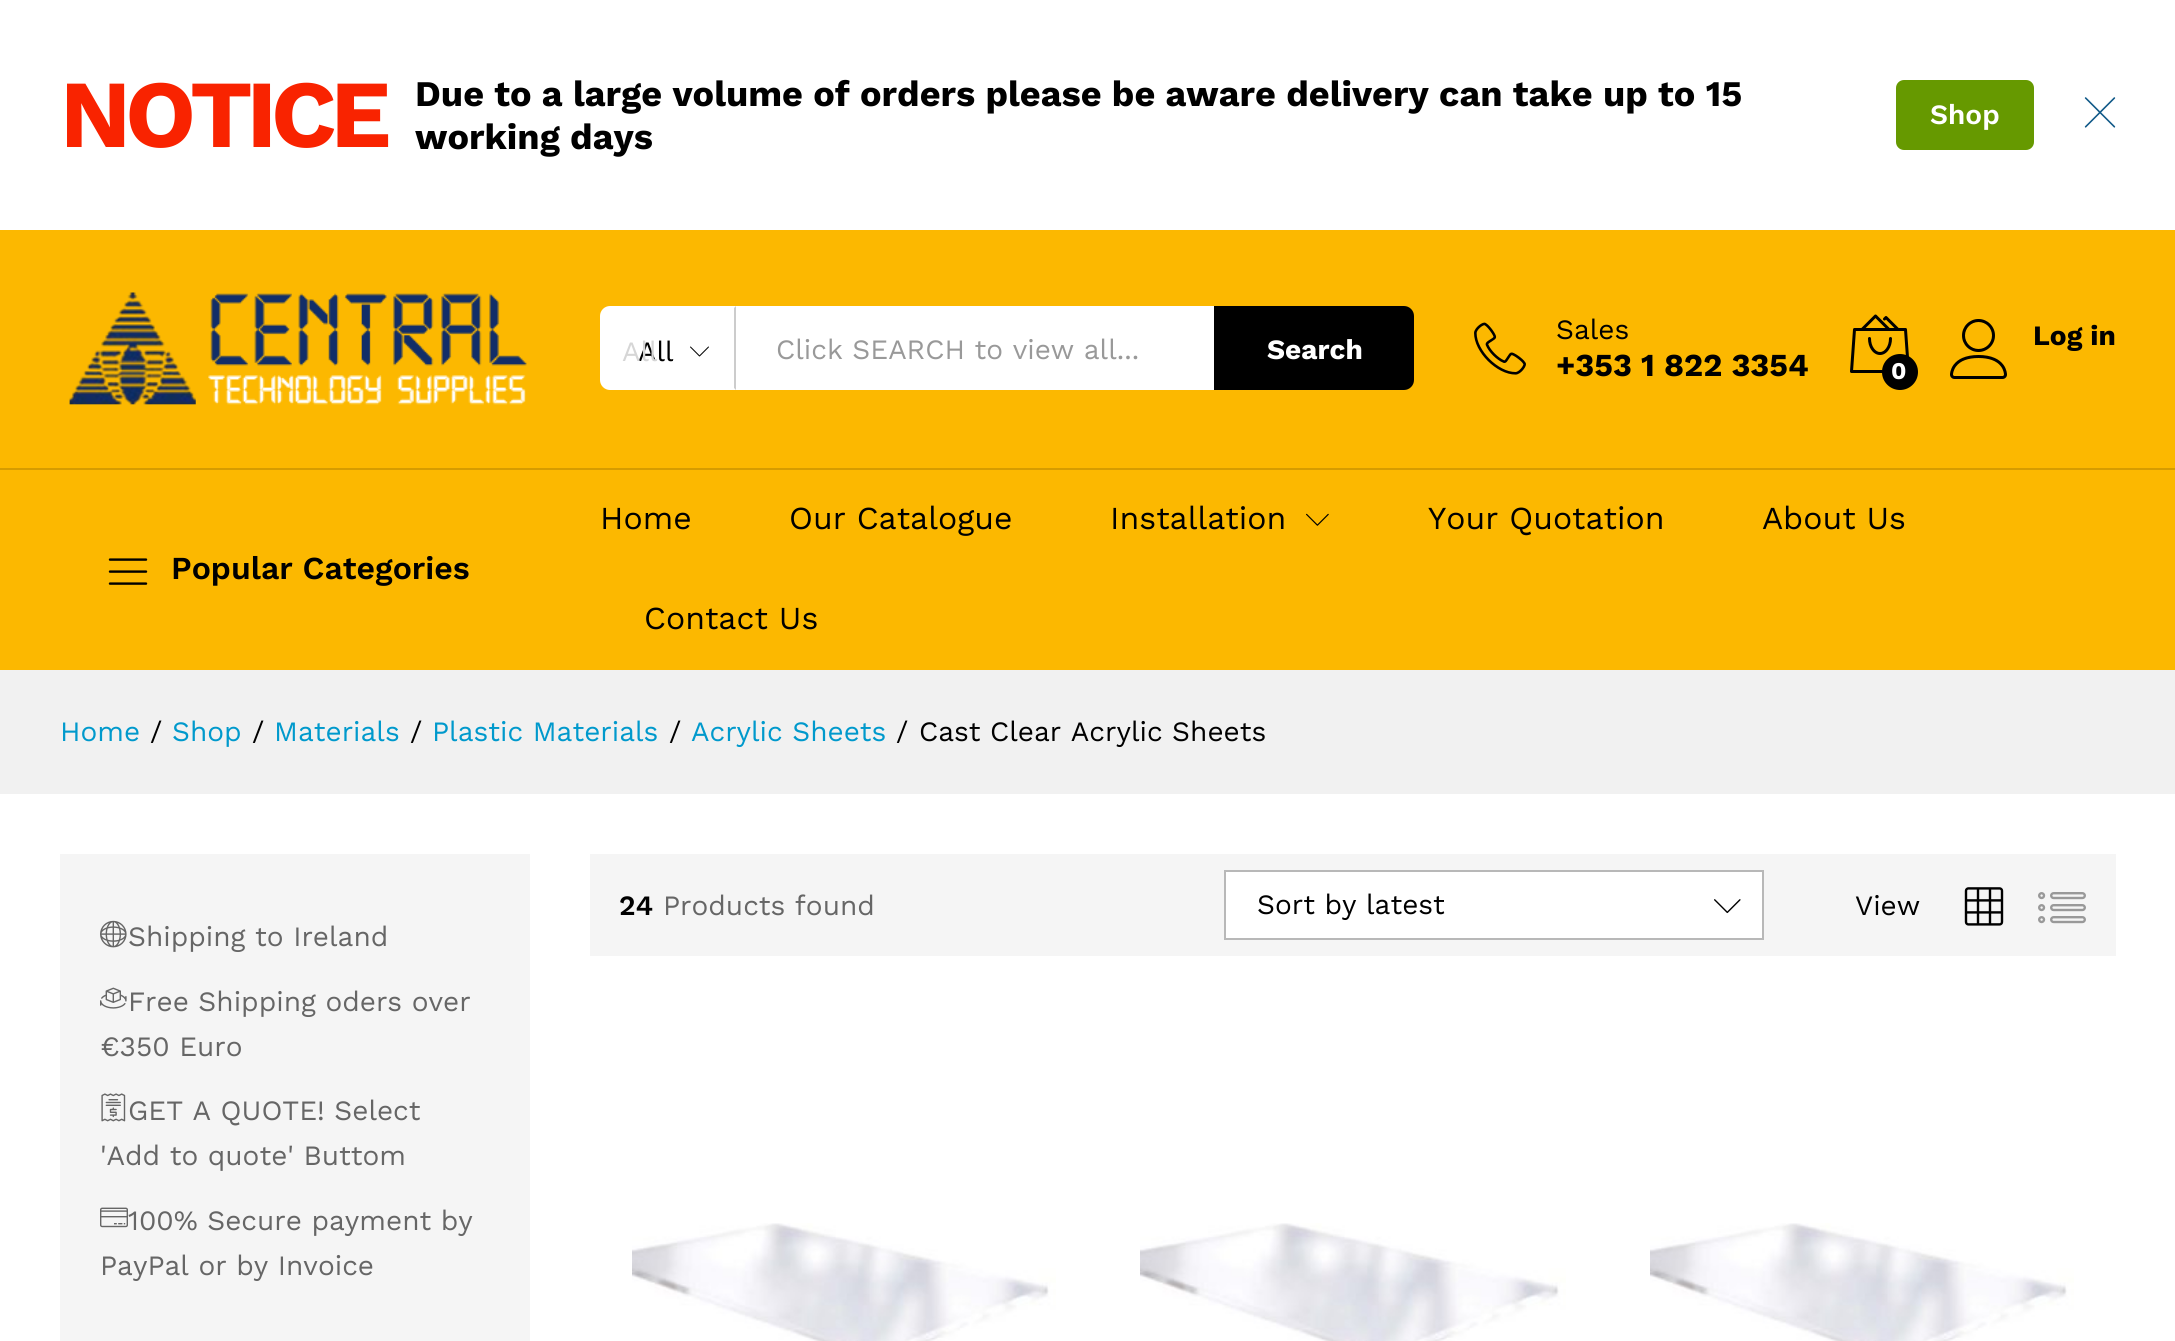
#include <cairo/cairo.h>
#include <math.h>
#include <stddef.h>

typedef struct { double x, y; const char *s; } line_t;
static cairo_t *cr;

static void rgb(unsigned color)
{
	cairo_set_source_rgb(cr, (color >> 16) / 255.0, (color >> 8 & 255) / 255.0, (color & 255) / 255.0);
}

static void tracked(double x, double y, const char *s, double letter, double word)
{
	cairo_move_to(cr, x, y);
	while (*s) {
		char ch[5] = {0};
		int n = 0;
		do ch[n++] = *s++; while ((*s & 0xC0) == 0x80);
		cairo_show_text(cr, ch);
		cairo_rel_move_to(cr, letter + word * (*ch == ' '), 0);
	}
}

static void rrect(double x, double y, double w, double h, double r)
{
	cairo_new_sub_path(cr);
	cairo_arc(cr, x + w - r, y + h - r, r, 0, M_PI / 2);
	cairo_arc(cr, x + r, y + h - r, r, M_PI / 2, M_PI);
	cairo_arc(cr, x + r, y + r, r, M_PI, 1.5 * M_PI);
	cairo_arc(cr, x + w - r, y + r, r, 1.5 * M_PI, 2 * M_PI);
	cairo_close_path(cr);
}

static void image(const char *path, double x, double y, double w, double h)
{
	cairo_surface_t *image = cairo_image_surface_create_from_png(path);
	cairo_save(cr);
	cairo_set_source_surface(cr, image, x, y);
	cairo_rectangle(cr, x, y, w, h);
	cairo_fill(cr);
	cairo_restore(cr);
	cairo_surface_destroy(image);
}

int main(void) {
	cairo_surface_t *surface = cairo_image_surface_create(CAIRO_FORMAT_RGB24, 2175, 1341);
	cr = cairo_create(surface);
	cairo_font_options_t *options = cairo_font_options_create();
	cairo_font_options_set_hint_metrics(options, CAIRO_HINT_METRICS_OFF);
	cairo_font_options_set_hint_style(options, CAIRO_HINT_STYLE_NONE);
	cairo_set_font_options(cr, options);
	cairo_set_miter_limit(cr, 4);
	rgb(0xffffff);
	cairo_paint(cr);
	rgb(0x669900);
	rrect(1896, 80, 138, 70, 8);
	cairo_fill(cr);
	image("img/1.png", 2084, 97, 32, 31);
	rgb(0xfcb800);
	cairo_rectangle(cr, 0, 230, 2175, 440);
	cairo_fill(cr);
	image("img/2.png", 69, 292, 458, 113);
	rgb(0xffffff);
	cairo_new_path(cr);
	cairo_move_to(cr, 610, 306);
	cairo_line_to(cr, 736, 306);
	cairo_line_to(cr, 736, 390);
	cairo_line_to(cr, 610, 390);
	cairo_curve_to(cr, 604.5, 390, 600, 385.5, 600, 380);
	cairo_line_to(cr, 600, 316);
	cairo_curve_to(cr, 600, 310.5, 604.5, 306, 610, 306);
	cairo_close_path(cr);
	cairo_fill(cr);
	rgb(0xcccccc);
	cairo_new_path(cr);
	cairo_move_to(cr, 736, 306);
	cairo_line_to(cr, 734, 308);
	cairo_line_to(cr, 734, 388);
	cairo_line_to(cr, 736, 390);
	cairo_close_path(cr);
	cairo_fill(cr);
	image("img/3.png", 690, 346, 19, 11);
	rgb(0xffffff);
	cairo_rectangle(cr, 736, 306, 478, 84);
	cairo_fill(cr);
	rgb(0x000000);
	cairo_new_path(cr);
	cairo_move_to(cr, 1214, 306);
	cairo_line_to(cr, 1404, 306);
	cairo_curve_to(cr, 1409.5, 306, 1414, 310.5, 1414, 316);
	cairo_line_to(cr, 1414, 380);
	cairo_curve_to(cr, 1414, 385.5, 1409.5, 390, 1404, 390);
	cairo_line_to(cr, 1214, 390);
	cairo_close_path(cr);
	cairo_fill(cr);
	image("img/4.png", 1474, 322, 52, 53);
	image("img/5.png", 1950, 319, 57, 60);
	image("img/6.png", 1850, 314, 59, 59);
	cairo_arc(cr, 1900, 372, 18, 0, 2 * M_PI);
	cairo_fill(cr);
	rgb(0xd69c00);
	cairo_rectangle(cr, 0, 468, 2175, 2);
	cairo_fill(cr);
	image("img/7.png", 108, 558, 40, 27);
	image("img/8.png", 1306, 513, 23, 13);
	rgb(0xf1f1f1);
	cairo_rectangle(cr, 0, 670, 2175, 124);
	cairo_fill(cr);
	rgb(0xf5f5f5);
	cairo_rectangle(cr, 590, 854, 1526, 102);
	cairo_fill(cr);
	rgb(0xffffff);
	cairo_rectangle(cr, 1225, 871, 538, 68);
	cairo_fill_preserve(cr);
	rgb(0xb8b8b8);
	cairo_stroke(cr);
	image("img/9.png", 1714, 899, 27, 15);
	image("img/10.png", 1964, 887, 40, 39);
	image("img/11.png", 2038, 892, 48, 32);
	image("img/12.png", 632, 1223, 424, 118);
	image("img/13.png", 1140, 1223, 426, 118);
	image("img/14.png", 1650, 1223, 424, 118);
	rgb(0xf5f5f5);
	cairo_rectangle(cr, 60, 854, 470, 487);
	cairo_fill(cr);
	image("img/15.png", 100, 920, 27, 28);
	image("img/16.png", 100, 987, 27, 22);
	image("img/17.png", 101, 1093, 25, 29);
	image("img/18.png", 100, 1207, 28, 21);
	cairo_select_font_face(cr, "Work Sans", CAIRO_FONT_SLANT_NORMAL, CAIRO_FONT_WEIGHT_BOLD);
	cairo_set_font_size(cr, 96);
	rgb(0xf92300);
	tracked(60, 147, "NOTICE", -6, 0);
	cairo_set_font_size(cr, 36);
	rgb(0x000000);
	cairo_move_to(cr, 415, 106);
	cairo_show_text(cr, "Due to a large volume of orders please be aware delivery can take up to 15");
	cairo_move_to(cr, 415, 149);
	cairo_show_text(cr, "working days");
	cairo_select_font_face(cr, "Work Sans SemiBold", CAIRO_FONT_SLANT_NORMAL, CAIRO_FONT_WEIGHT_NORMAL);
	cairo_set_font_size(cr, 28);
	rgb(0xffffff);
	cairo_move_to(cr, 1930, 124);
	cairo_show_text(cr, "Shop");
	cairo_select_font_face(cr, "Work Sans", CAIRO_FONT_SLANT_NORMAL, CAIRO_FONT_WEIGHT_NORMAL);
	rgb(0x000000);
	cairo_move_to(cr, 638, 361);
	cairo_show_text(cr, "All");
	rgb(0xd6d6d6);
	cairo_move_to(cr, 622, 361);
	cairo_show_text(cr, "All");
	rgb(0x999999);
	cairo_move_to(cr, 776, 359);
	cairo_show_text(cr, "Click SEARCH to view all...");
	cairo_select_font_face(cr, "Work Sans", CAIRO_FONT_SLANT_NORMAL, CAIRO_FONT_WEIGHT_BOLD);
	rgb(0xffffff);
	cairo_move_to(cr, 1267, 359);
	cairo_show_text(cr, "Search");
	cairo_select_font_face(cr, "Work Sans", CAIRO_FONT_SLANT_NORMAL, CAIRO_FONT_WEIGHT_NORMAL);
	rgb(0x000000);
	cairo_move_to(cr, 1556, 339);
	cairo_show_text(cr, "Sales");
	cairo_select_font_face(cr, "Work Sans", CAIRO_FONT_SLANT_NORMAL, CAIRO_FONT_WEIGHT_BOLD);
	cairo_set_font_size(cr, 32);
	cairo_move_to(cr, 1556, 376);
	cairo_show_text(cr, "+353 1 822 3354");
	cairo_set_font_size(cr, 28);
	cairo_move_to(cr, 2033, 345);
	cairo_show_text(cr, "Log in");
	cairo_set_font_size(cr, 24);
	rgb(0xffffff);
	cairo_move_to(cr, 1891, 379);
	cairo_show_text(cr, "0");
	cairo_select_font_face(cr, "Work Sans SemiBold", CAIRO_FONT_SLANT_NORMAL, CAIRO_FONT_WEIGHT_NORMAL);
	cairo_set_font_size(cr, 32);
	rgb(0x000000);
	cairo_move_to(cr, 171, 579);
	cairo_show_text(cr, "Popular Categories");
	cairo_select_font_face(cr, "Work Sans", CAIRO_FONT_SLANT_NORMAL, CAIRO_FONT_WEIGHT_NORMAL);
	{
		static const line_t items[] = {
			{600, 529, "Home"},
			{789, 529, "Our Catalogue"},
			{1110, 529, "Installation"},
			{1428, 529, "Your Quotation"},
			{1762, 529, "About Us"},
			{644, 629, "Contact Us"},
		};
		for (size_t i = 0; i < sizeof items / sizeof *items; i++) {
			cairo_move_to(cr, items[i].x, items[i].y);
			cairo_show_text(cr, items[i].s);
		}
	}
	cairo_set_font_size(cr, 28);
	rgb(0x0099cc);
	cairo_move_to(cr, 60, 741);
	cairo_show_text(cr, "Home");
	rgb(0x000000);
	cairo_move_to(cr, 150, 741);
	cairo_show_text(cr, "/");
	rgb(0x0099cc);
	cairo_move_to(cr, 172, 741);
	cairo_show_text(cr, "Shop");
	rgb(0x000000);
	cairo_move_to(cr, 252, 741);
	cairo_show_text(cr, "/");
	rgb(0x0099cc);
	cairo_move_to(cr, 274, 741);
	cairo_show_text(cr, "Materials");
	rgb(0x000000);
	cairo_move_to(cr, 410, 741);
	cairo_show_text(cr, "/");
	rgb(0x0099cc);
	cairo_move_to(cr, 432, 741);
	cairo_show_text(cr, "Plastic Materials");
	rgb(0x000000);
	cairo_move_to(cr, 669, 741);
	cairo_show_text(cr, "/");
	rgb(0x0099cc);
	cairo_move_to(cr, 691, 741);
	cairo_show_text(cr, "Acrylic Sheets");
	rgb(0x000000);
	cairo_move_to(cr, 896, 741);
	cairo_show_text(cr, "/");
	cairo_move_to(cr, 919, 741);
	cairo_show_text(cr, "Cast Clear Acrylic Sheets");
	cairo_select_font_face(cr, "Work Sans SemiBold", CAIRO_FONT_SLANT_NORMAL, CAIRO_FONT_WEIGHT_NORMAL);
	cairo_move_to(cr, 619, 915);
	cairo_show_text(cr, "24");
	cairo_select_font_face(cr, "Work Sans", CAIRO_FONT_SLANT_NORMAL, CAIRO_FONT_WEIGHT_NORMAL);
	rgb(0x666666);
	cairo_move_to(cr, 663, 915);
	cairo_show_text(cr, "Products found");
	rgb(0x000000);
	cairo_move_to(cr, 1257, 914);
	cairo_show_text(cr, "Sort by latest");
	cairo_move_to(cr, 1855, 915);
	cairo_show_text(cr, "View");
	rgb(0x666666);
	{
		static const line_t items[] = {
			{128, 946, "Shipping to Ireland"},
			{128, 1011, "Free Shipping oders over"},
			{100, 1056, "€350 Euro"},
			{128, 1120, "GET A QUOTE! Select"},
			{100, 1165, "'Add to quote' Buttom"},
			{128, 1230, "100% Secure payment by"},
			{100, 1275, "PayPal or by Invoice"},
		};
		for (size_t i = 0; i < sizeof items / sizeof *items; i++) {
			cairo_move_to(cr, items[i].x, items[i].y);
			cairo_show_text(cr, items[i].s);
		}
	}
	cairo_surface_write_to_png(surface, "page.png");
	cairo_font_options_destroy(options);
	cairo_destroy(cr);
	cairo_surface_destroy(surface);
	return 0;
}
